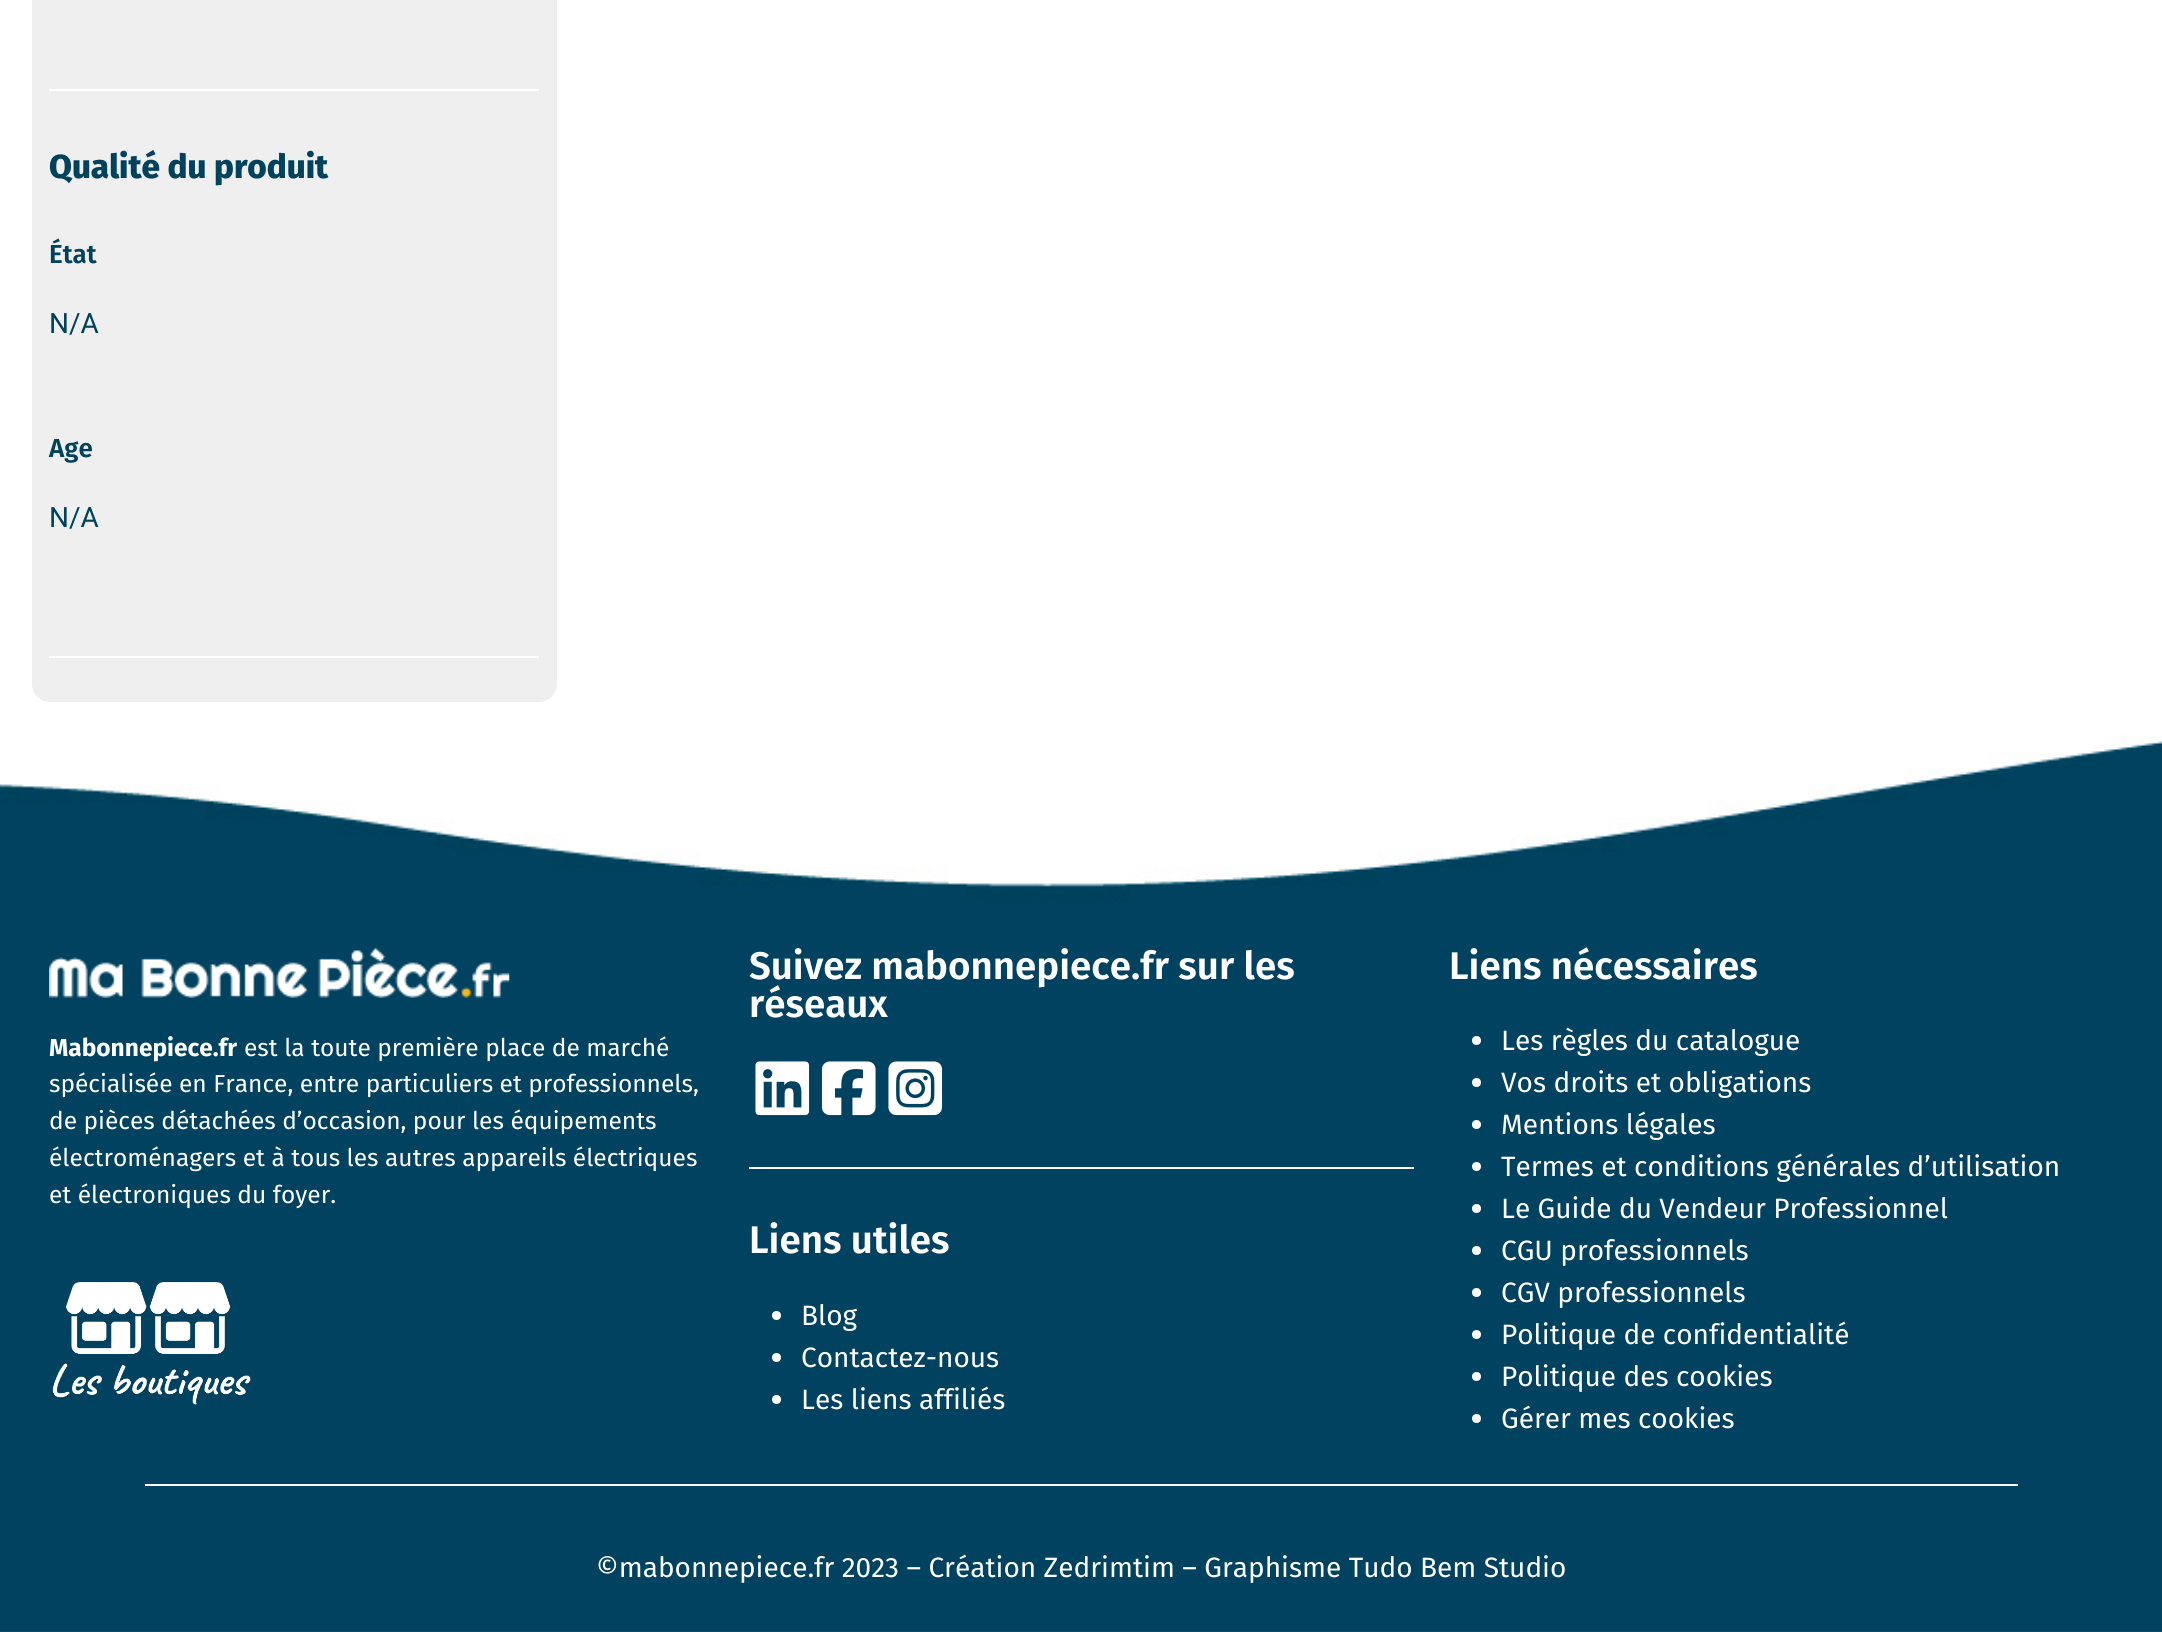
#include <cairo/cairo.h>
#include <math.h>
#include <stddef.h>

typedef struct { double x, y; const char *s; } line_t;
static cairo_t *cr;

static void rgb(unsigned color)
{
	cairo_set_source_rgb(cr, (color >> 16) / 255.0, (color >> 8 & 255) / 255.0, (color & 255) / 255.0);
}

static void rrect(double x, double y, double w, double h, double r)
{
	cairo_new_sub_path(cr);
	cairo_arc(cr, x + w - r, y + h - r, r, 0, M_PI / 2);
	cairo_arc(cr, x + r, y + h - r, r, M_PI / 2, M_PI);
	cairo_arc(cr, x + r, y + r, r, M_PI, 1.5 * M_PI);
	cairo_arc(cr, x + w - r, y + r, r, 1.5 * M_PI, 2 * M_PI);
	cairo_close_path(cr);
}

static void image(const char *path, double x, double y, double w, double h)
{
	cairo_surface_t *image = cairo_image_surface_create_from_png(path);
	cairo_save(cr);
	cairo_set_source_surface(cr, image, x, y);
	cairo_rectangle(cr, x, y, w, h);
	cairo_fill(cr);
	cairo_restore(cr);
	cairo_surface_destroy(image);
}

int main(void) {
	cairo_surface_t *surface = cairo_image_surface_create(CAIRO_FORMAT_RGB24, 2162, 1632);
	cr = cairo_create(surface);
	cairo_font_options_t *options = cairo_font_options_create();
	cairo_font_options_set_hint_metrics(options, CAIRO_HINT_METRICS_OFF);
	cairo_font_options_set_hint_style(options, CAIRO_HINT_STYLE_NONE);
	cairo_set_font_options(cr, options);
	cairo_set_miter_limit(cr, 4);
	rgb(0xffffff);
	cairo_paint(cr);
	rgb(0xefefef);
	rrect(32, -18, 525, 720, 18);
	cairo_fill(cr);
	rgb(0xffffff);
	cairo_rectangle(cr, 49, 89, 490, 2);
	cairo_fill(cr);
	cairo_rectangle(cr, 49, 656, 490, 2);
	cairo_fill(cr);
	image("img/1.png", 0, 702, 2162, 930);
	image("img/2.png", 49, 947, 461, 51);
	image("img/3.png", 52, 1282, 199, 123);
	image("img/4.png", 755, 1061, 55, 55);
	image("img/5.png", 821, 1061, 55, 55);
	image("img/6.png", 888, 1061, 55, 55);
	cairo_rectangle(cr, 749, 1167, 665, 2);
	cairo_fill(cr);
	cairo_arc(cr, 776.5, 1315.5, 4.5, 0, 2 * M_PI);
	cairo_fill(cr);
	cairo_arc(cr, 776.5, 1357.5, 4.5, 0, 2 * M_PI);
	cairo_fill(cr);
	cairo_arc(cr, 776.5, 1399.5, 4.5, 0, 2 * M_PI);
	cairo_fill(cr);
	cairo_arc(cr, 1476.5, 1040.5, 4.5, 0, 2 * M_PI);
	cairo_fill(cr);
	cairo_arc(cr, 1476.5, 1082.5, 4.5, 0, 2 * M_PI);
	cairo_fill(cr);
	cairo_arc(cr, 1476.5, 1124.5, 4.5, 0, 2 * M_PI);
	cairo_fill(cr);
	cairo_arc(cr, 1476.5, 1166.5, 4.5, 0, 2 * M_PI);
	cairo_fill(cr);
	cairo_arc(cr, 1476.5, 1208.5, 4.5, 0, 2 * M_PI);
	cairo_fill(cr);
	cairo_arc(cr, 1476.5, 1250.5, 4.5, 0, 2 * M_PI);
	cairo_fill(cr);
	cairo_arc(cr, 1476.5, 1292.5, 4.5, 0, 2 * M_PI);
	cairo_fill(cr);
	cairo_arc(cr, 1476.5, 1334.5, 4.5, 0, 2 * M_PI);
	cairo_fill(cr);
	cairo_arc(cr, 1476.5, 1376.5, 4.5, 0, 2 * M_PI);
	cairo_fill(cr);
	cairo_arc(cr, 1476.5, 1418.5, 4.5, 0, 2 * M_PI);
	cairo_fill(cr);
	cairo_rectangle(cr, 145, 1484, 1873, 2);
	cairo_fill(cr);
	cairo_select_font_face(cr, "Fira Sans ExtraBold", CAIRO_FONT_SLANT_NORMAL, CAIRO_FONT_WEIGHT_NORMAL);
	cairo_set_font_size(cr, 33.25);
	rgb(0x00415b);
	cairo_move_to(cr, 49, 178);
	cairo_show_text(cr, "Qualité du produit");
	cairo_select_font_face(cr, "Fira Sans SemiBold", CAIRO_FONT_SLANT_NORMAL, CAIRO_FONT_WEIGHT_NORMAL);
	cairo_set_font_size(cr, 26);
	cairo_move_to(cr, 49, 263);
	cairo_show_text(cr, "État");
	cairo_select_font_face(cr, "Roboto", CAIRO_FONT_SLANT_NORMAL, CAIRO_FONT_WEIGHT_NORMAL);
	cairo_set_font_size(cr, 28);
	cairo_move_to(cr, 49, 333);
	cairo_show_text(cr, "N/A");
	cairo_select_font_face(cr, "Fira Sans SemiBold", CAIRO_FONT_SLANT_NORMAL, CAIRO_FONT_WEIGHT_NORMAL);
	cairo_set_font_size(cr, 26);
	cairo_move_to(cr, 49, 457);
	cairo_show_text(cr, "Age");
	cairo_select_font_face(cr, "Roboto", CAIRO_FONT_SLANT_NORMAL, CAIRO_FONT_WEIGHT_NORMAL);
	cairo_set_font_size(cr, 28);
	cairo_move_to(cr, 49, 527);
	cairo_show_text(cr, "N/A");
	cairo_select_font_face(cr, "Fira Sans", CAIRO_FONT_SLANT_NORMAL, CAIRO_FONT_WEIGHT_BOLD);
	cairo_set_font_size(cr, 24.5);
	rgb(0xffffff);
	cairo_move_to(cr, 49, 1056);
	cairo_show_text(cr, "Mabonnepiece.fr");
	cairo_select_font_face(cr, "Fira Sans", CAIRO_FONT_SLANT_NORMAL, CAIRO_FONT_WEIGHT_NORMAL);
	{
		static const line_t items[] = {
			{244, 1056, "est la toute première place de marché"},
			{49, 1092, "spécialisée en France, entre particuliers et professionnels,"},
			{49, 1129, "de pièces détachées d’occasion, pour les équipements"},
			{49, 1166, "électroménagers et à tous les autres appareils électriques"},
			{49, 1203, "et électroniques du foyer."},
		};
		for (size_t i = 0; i < sizeof items / sizeof *items; i++) {
			cairo_move_to(cr, items[i].x, items[i].y);
			cairo_show_text(cr, items[i].s);
		}
	}
	cairo_select_font_face(cr, "Fira Sans SemiBold", CAIRO_FONT_SLANT_NORMAL, CAIRO_FONT_WEIGHT_NORMAL);
	cairo_set_font_size(cr, 38.5);
	{
		static const line_t items[] = {
			{749, 979, "Suivez mabonnepiece.fr sur les"},
			{749, 1017, "réseaux"},
			{749, 1253, "Liens utiles"},
		};
		for (size_t i = 0; i < sizeof items / sizeof *items; i++) {
			cairo_move_to(cr, items[i].x, items[i].y);
			cairo_show_text(cr, items[i].s);
		}
	}
	cairo_select_font_face(cr, "Fira Sans", CAIRO_FONT_SLANT_NORMAL, CAIRO_FONT_WEIGHT_NORMAL);
	cairo_set_font_size(cr, 28);
	{
		static const line_t items[] = {
			{801, 1325, "Blog"},
			{801, 1367, "Contactez-nous"},
			{801, 1409, "Les liens affiliés"},
		};
		for (size_t i = 0; i < sizeof items / sizeof *items; i++) {
			cairo_move_to(cr, items[i].x, items[i].y);
			cairo_show_text(cr, items[i].s);
		}
	}
	cairo_select_font_face(cr, "Fira Sans SemiBold", CAIRO_FONT_SLANT_NORMAL, CAIRO_FONT_WEIGHT_NORMAL);
	cairo_set_font_size(cr, 38.5);
	cairo_move_to(cr, 1449, 979);
	cairo_show_text(cr, "Liens nécessaires");
	cairo_select_font_face(cr, "Fira Sans", CAIRO_FONT_SLANT_NORMAL, CAIRO_FONT_WEIGHT_NORMAL);
	cairo_set_font_size(cr, 28);
	{
		static const line_t items[] = {
			{1501, 1050, "Les règles du catalogue"},
			{1501, 1092, "Vos droits et obligations"},
			{1501, 1134, "Mentions légales"},
			{1501, 1176, "Termes et conditions générales d’utilisation"},
			{1501, 1218, "Le Guide du Vendeur Professionnel"},
			{1501, 1260, "CGU professionnels"},
			{1501, 1302, "CGV professionnels"},
			{1501, 1344, "Politique de confidentialité"},
			{1501, 1386, "Politique des cookies"},
			{1501, 1428, "Gérer mes cookies"},
			{596, 1577, "©mabonnepiece.fr 2023 – Création Zedrimtim – Graphisme Tudo Bem Studio"},
		};
		for (size_t i = 0; i < sizeof items / sizeof *items; i++) {
			cairo_move_to(cr, items[i].x, items[i].y);
			cairo_show_text(cr, items[i].s);
		}
	}
	cairo_surface_write_to_png(surface, "page.png");
	cairo_font_options_destroy(options);
	cairo_destroy(cr);
	cairo_surface_destroy(surface);
	return 0;
}
